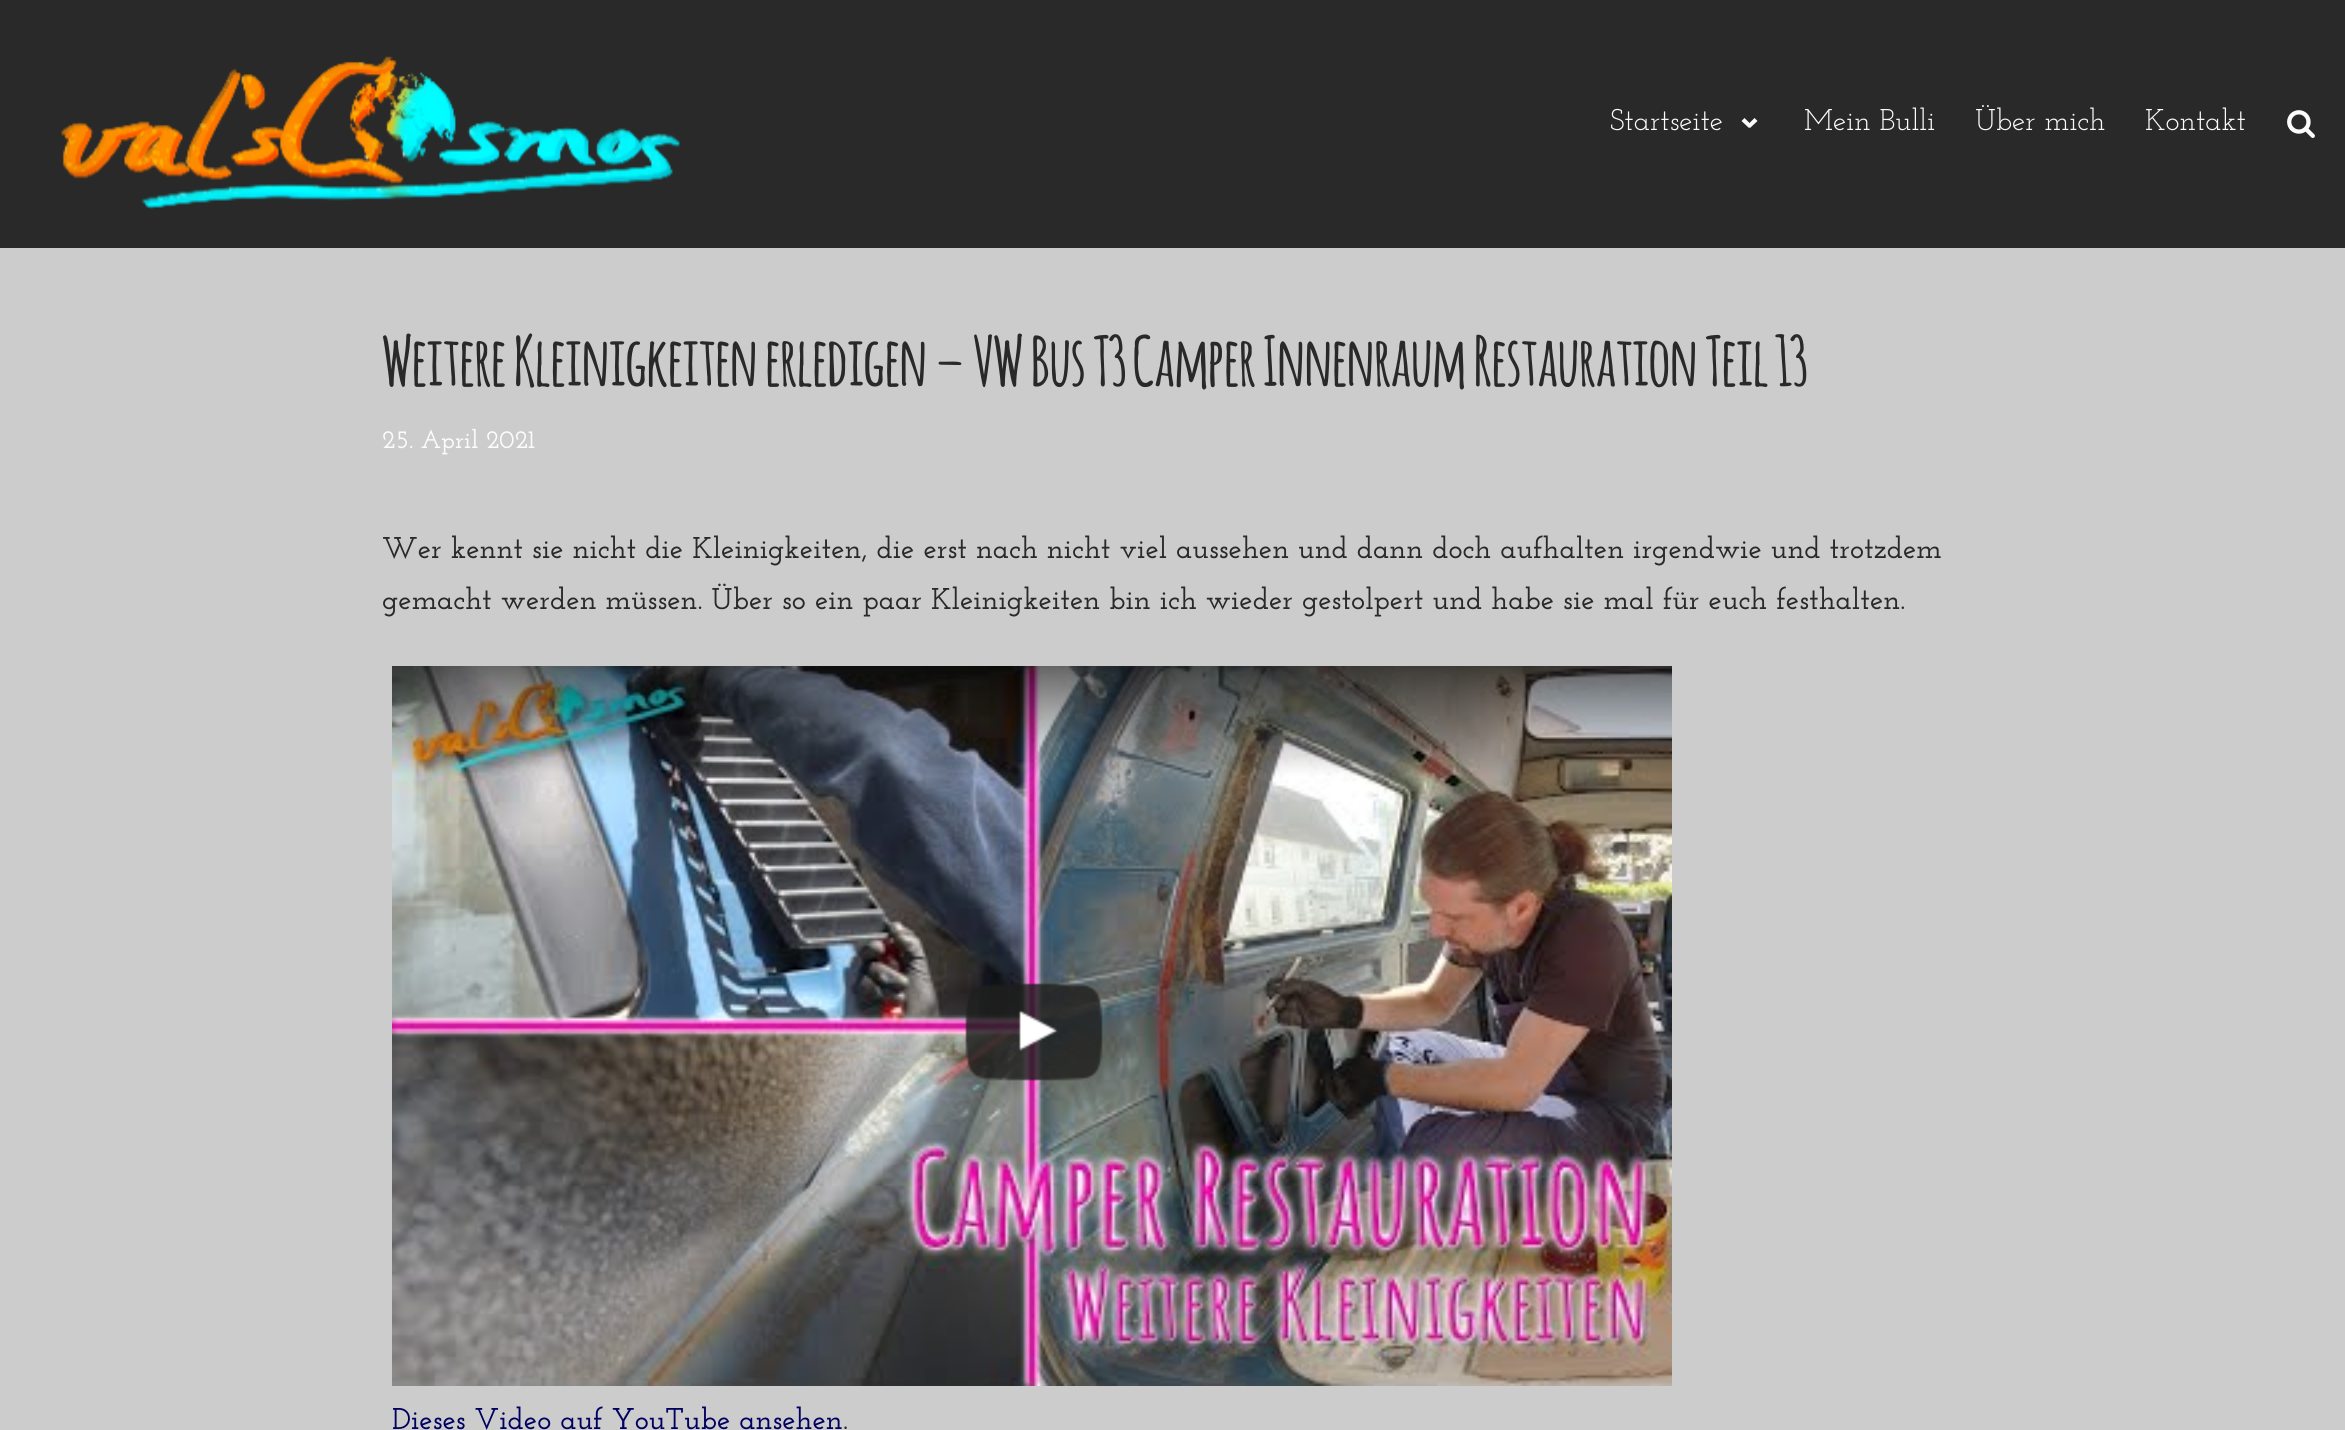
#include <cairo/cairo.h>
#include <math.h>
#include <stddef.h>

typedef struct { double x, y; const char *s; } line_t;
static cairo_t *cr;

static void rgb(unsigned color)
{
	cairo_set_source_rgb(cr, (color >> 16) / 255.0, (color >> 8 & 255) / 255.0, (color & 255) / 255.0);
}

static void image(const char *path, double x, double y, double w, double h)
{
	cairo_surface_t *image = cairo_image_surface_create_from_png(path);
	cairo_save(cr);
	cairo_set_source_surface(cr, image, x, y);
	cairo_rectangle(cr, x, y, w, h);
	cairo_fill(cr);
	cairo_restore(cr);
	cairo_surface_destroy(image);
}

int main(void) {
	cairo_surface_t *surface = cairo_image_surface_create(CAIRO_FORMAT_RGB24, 2345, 1430);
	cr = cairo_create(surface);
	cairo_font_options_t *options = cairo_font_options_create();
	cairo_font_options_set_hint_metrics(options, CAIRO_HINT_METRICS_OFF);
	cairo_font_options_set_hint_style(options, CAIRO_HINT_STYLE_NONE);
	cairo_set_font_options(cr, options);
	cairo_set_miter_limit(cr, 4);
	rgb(0xcccccc);
	cairo_paint(cr);
	rgb(0x292929);
	cairo_rectangle(cr, 0, 0, 2345, 248);
	cairo_fill(cr);
	image("img/1.png", 61, 56, 619, 154);
	rgb(0xfcfcfc);
	cairo_new_path(cr);
	cairo_move_to(cr, 1757.5, 121);
	cairo_line_to(cr, 1750, 128);
	cairo_line_to(cr, 1747.5, 125);
	cairo_line_to(cr, 1754.5, 118);
	cairo_close_path(cr);
	cairo_fill(cr);
	cairo_new_path(cr);
	cairo_move_to(cr, 1751.5, 125);
	cairo_line_to(cr, 1749, 128);
	cairo_line_to(cr, 1741.5, 121);
	cairo_line_to(cr, 1744.5, 118);
	cairo_close_path(cr);
	cairo_fill(cr);
	image("img/2.png", 2287, 110, 28, 28);
	image("img/3.png", 392, 666, 1280, 720);
	image("img/4.png", 965, 983, 138, 98);
	cairo_select_font_face(cr, "Josefin Slab", CAIRO_FONT_SLANT_NORMAL, CAIRO_FONT_WEIGHT_NORMAL);
	cairo_set_font_size(cr, 30);
	{
		static const line_t items[] = {
			{1610, 130, "Startseite"},
			{1804, 130, "Mein Bulli"},
			{1975, 130, "Über mich"},
			{2145, 130, "Kontakt"},
		};
		for (size_t i = 0; i < sizeof items / sizeof *items; i++) {
			cairo_move_to(cr, items[i].x, items[i].y);
			cairo_show_text(cr, items[i].s);
		}
	}
	cairo_select_font_face(cr, "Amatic", CAIRO_FONT_SLANT_NORMAL, CAIRO_FONT_WEIGHT_BOLD);
	cairo_set_font_size(cr, 67.5);
	rgb(0x292929);
	cairo_move_to(cr, 382, 386);
	cairo_show_text(cr, "Weitere Kleinigkeiten erledigen – VW Bus T3 Camper Innenraum Restauration Teil 13");
	cairo_select_font_face(cr, "Josefin Slab SemiBold", CAIRO_FONT_SLANT_NORMAL, CAIRO_FONT_WEIGHT_NORMAL);
	cairo_set_font_size(cr, 25.5);
	rgb(0xfcfcfc);
	cairo_move_to(cr, 382, 448);
	cairo_show_text(cr, "25. April 2021");
	cairo_set_font_size(cr, 30);
	rgb(0x292929);
	cairo_move_to(cr, 382, 558);
	cairo_show_text(cr, "Wer kennt sie nicht die Kleinigkeiten, die erst nach nicht viel aussehen und dann doch aufhalten irgendwie und trotzdem");
	cairo_move_to(cr, 382, 609);
	cairo_show_text(cr, "gemacht werden müssen. Über so ein paar Kleinigkeiten bin ich wieder gestolpert und habe sie mal für euch festhalten.");
	rgb(0x000060);
	cairo_move_to(cr, 392, 1429);
	cairo_show_text(cr, "Dieses Video auf YouTube ansehen");
	rgb(0x292929);
	cairo_move_to(cr, 843, 1429);
	cairo_show_text(cr, ".");
	cairo_surface_write_to_png(surface, "page.png");
	cairo_font_options_destroy(options);
	cairo_destroy(cr);
	cairo_surface_destroy(surface);
	return 0;
}
